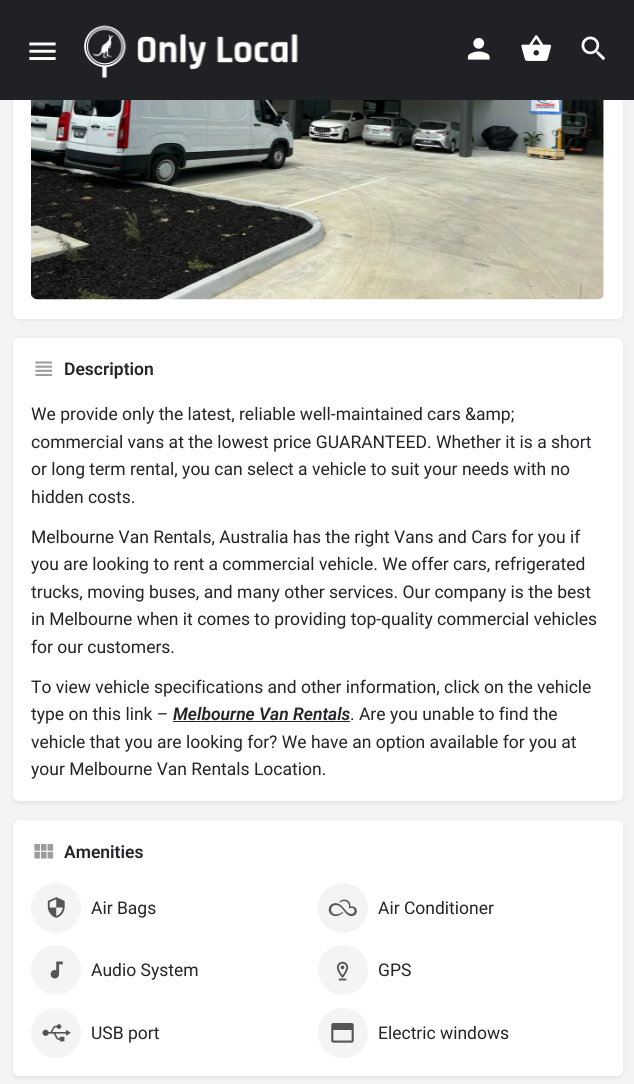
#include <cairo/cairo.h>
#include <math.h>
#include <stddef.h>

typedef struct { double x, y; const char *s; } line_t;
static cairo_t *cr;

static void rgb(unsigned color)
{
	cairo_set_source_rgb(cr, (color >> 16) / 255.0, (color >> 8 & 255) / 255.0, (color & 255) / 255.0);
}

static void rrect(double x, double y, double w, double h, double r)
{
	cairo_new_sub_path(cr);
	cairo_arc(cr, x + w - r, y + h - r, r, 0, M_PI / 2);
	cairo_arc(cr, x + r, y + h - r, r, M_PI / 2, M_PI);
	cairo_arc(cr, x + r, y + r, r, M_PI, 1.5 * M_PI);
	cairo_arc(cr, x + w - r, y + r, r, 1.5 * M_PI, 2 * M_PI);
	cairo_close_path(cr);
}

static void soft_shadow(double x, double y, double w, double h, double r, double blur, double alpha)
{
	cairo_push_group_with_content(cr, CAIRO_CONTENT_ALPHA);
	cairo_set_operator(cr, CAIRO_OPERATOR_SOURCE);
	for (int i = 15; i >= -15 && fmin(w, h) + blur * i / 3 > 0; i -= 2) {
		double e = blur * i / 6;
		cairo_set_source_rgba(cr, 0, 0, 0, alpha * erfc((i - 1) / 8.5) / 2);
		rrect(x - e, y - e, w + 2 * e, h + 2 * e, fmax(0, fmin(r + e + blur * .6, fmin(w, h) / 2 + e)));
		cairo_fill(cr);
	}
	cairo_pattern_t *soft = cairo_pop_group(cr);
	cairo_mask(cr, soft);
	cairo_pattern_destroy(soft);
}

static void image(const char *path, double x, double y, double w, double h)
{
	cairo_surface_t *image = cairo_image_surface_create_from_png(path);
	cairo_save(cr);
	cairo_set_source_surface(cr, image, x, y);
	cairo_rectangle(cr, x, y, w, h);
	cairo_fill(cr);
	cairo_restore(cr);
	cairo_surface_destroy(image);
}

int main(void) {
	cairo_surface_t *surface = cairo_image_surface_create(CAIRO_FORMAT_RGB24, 634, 1084);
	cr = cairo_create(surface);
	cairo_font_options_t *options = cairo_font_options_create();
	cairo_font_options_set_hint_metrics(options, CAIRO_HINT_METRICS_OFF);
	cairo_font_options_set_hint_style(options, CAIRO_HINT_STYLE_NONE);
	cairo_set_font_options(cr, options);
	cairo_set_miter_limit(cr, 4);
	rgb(0xf4f4f4);
	cairo_paint(cr);
	rgb(0x000000);
	soft_shadow(13, -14, 610, 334, 6, 2.5, 0.07);
	rgb(0xffffff);
	rrect(13, -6, 610, 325, 6);
	cairo_fill(cr);
	rgb(0x202125);
	cairo_rectangle(cr, 0, 0, 634, 100);
	cairo_fill(cr);
	image("img/1.png", 29, 42, 27, 18);
	image("img/2.png", 84, 25, 214, 54);
	image("img/3.png", 467, 37, 23, 23);
	image("img/4.png", 521, 35, 31, 26);
	image("img/5.png", 581, 36, 25, 25);
	image("img/6.png", 31, 100, 573, 200);
	rgb(0x000000);
	soft_shadow(13, 339, 610, 464, 6, 2.5, 0.07);
	rgb(0xffffff);
	rrect(13, 338, 610, 463, 6);
	cairo_fill(cr);
	image("img/7.png", 35, 361, 18, 15);
	rgb(0x242429);
	cairo_rectangle(cr, 173, 721, 177, 1);
	cairo_fill(cr);
	rgb(0x000000);
	soft_shadow(13, 821, 610, 257, 6, 2.5, 0.07);
	rgb(0xffffff);
	rrect(13, 820, 610, 256, 6);
	cairo_fill(cr);
	image("img/8.png", 34, 844, 20, 15);
	rgb(0xf4f4f4);
	cairo_arc(cr, 56, 908, 25, 0, 2 * M_PI);
	cairo_fill(cr);
	image("img/9.png", 47, 897, 18, 21);
	cairo_arc(cr, 343, 908, 25, 0, 2 * M_PI);
	cairo_fill(cr);
	image("img/10.png", 328, 899, 29, 18);
	cairo_arc(cr, 56, 970, 25, 0, 2 * M_PI);
	cairo_fill(cr);
	image("img/11.png", 50, 961, 13, 18);
	cairo_arc(cr, 343, 970, 25, 0, 2 * M_PI);
	cairo_fill(cr);
	image("img/12.png", 336, 961, 13, 20);
	cairo_arc(cr, 56, 1033, 25, 0, 2 * M_PI);
	cairo_fill(cr);
	image("img/13.png", 42, 1024, 29, 18);
	cairo_arc(cr, 343, 1033, 25, 0, 2 * M_PI);
	cairo_fill(cr);
	image("img/14.png", 331, 1023, 23, 20);
	cairo_select_font_face(cr, "Roboto SemiBold", CAIRO_FONT_SLANT_NORMAL, CAIRO_FONT_WEIGHT_NORMAL);
	cairo_set_font_size(cr, 17.5);
	rgb(0x242429);
	cairo_move_to(cr, 64, 375);
	cairo_show_text(cr, "Description");
	cairo_select_font_face(cr, "Roboto", CAIRO_FONT_SLANT_NORMAL, CAIRO_FONT_WEIGHT_NORMAL);
	{
		static const line_t items[] = {
			{31, 420, "We provide only the latest, reliable well-maintained cars &amp;"},
			{31, 448, "commercial vans at the lowest price GUARANTEED. Whether it is a short"},
			{31, 475, "or long term rental, you can select a vehicle to suit your needs with no"},
			{31, 503, "hidden costs."},
			{31, 543, "Melbourne Van Rentals, Australia has the right Vans and Cars for you if"},
			{31, 570, "you are looking to rent a commercial vehicle. We offer cars, refrigerated"},
			{31, 598, "trucks, moving buses, and many other services. Our company is the best"},
			{31, 625, "in Melbourne when it comes to providing top-quality commercial vehicles"},
			{31, 653, "for our customers."},
			{31, 693, "To view vehicle specifications and other information, click on the vehicle"},
			{31, 720, "type on this link –"},
		};
		for (size_t i = 0; i < sizeof items / sizeof *items; i++) {
			cairo_move_to(cr, items[i].x, items[i].y);
			cairo_show_text(cr, items[i].s);
		}
	}
	cairo_select_font_face(cr, "Roboto SemiBold", CAIRO_FONT_SLANT_ITALIC, CAIRO_FONT_WEIGHT_NORMAL);
	cairo_move_to(cr, 173, 720);
	cairo_show_text(cr, "Melbourne Van Rentals");
	cairo_select_font_face(cr, "Roboto", CAIRO_FONT_SLANT_NORMAL, CAIRO_FONT_WEIGHT_NORMAL);
	{
		static const line_t items[] = {
			{350, 720, ". Are you unable to find the"},
			{31, 748, "vehicle that you are looking for? We have an option available for you at"},
			{31, 775, "your Melbourne Van Rentals Location."},
		};
		for (size_t i = 0; i < sizeof items / sizeof *items; i++) {
			cairo_move_to(cr, items[i].x, items[i].y);
			cairo_show_text(cr, items[i].s);
		}
	}
	cairo_select_font_face(cr, "Roboto SemiBold", CAIRO_FONT_SLANT_NORMAL, CAIRO_FONT_WEIGHT_NORMAL);
	cairo_move_to(cr, 64, 858);
	cairo_show_text(cr, "Amenities");
	cairo_select_font_face(cr, "Roboto", CAIRO_FONT_SLANT_NORMAL, CAIRO_FONT_WEIGHT_NORMAL);
	{
		static const line_t items[] = {
			{91, 914, "Air Bags"},
			{378, 914, "Air Conditioner"},
			{91, 976, "Audio System"},
			{378, 976, "GPS"},
			{91, 1039, "USB port"},
			{378, 1039, "Electric windows"},
		};
		for (size_t i = 0; i < sizeof items / sizeof *items; i++) {
			cairo_move_to(cr, items[i].x, items[i].y);
			cairo_show_text(cr, items[i].s);
		}
	}
	cairo_surface_write_to_png(surface, "page.png");
	cairo_font_options_destroy(options);
	cairo_destroy(cr);
	cairo_surface_destroy(surface);
	return 0;
}
